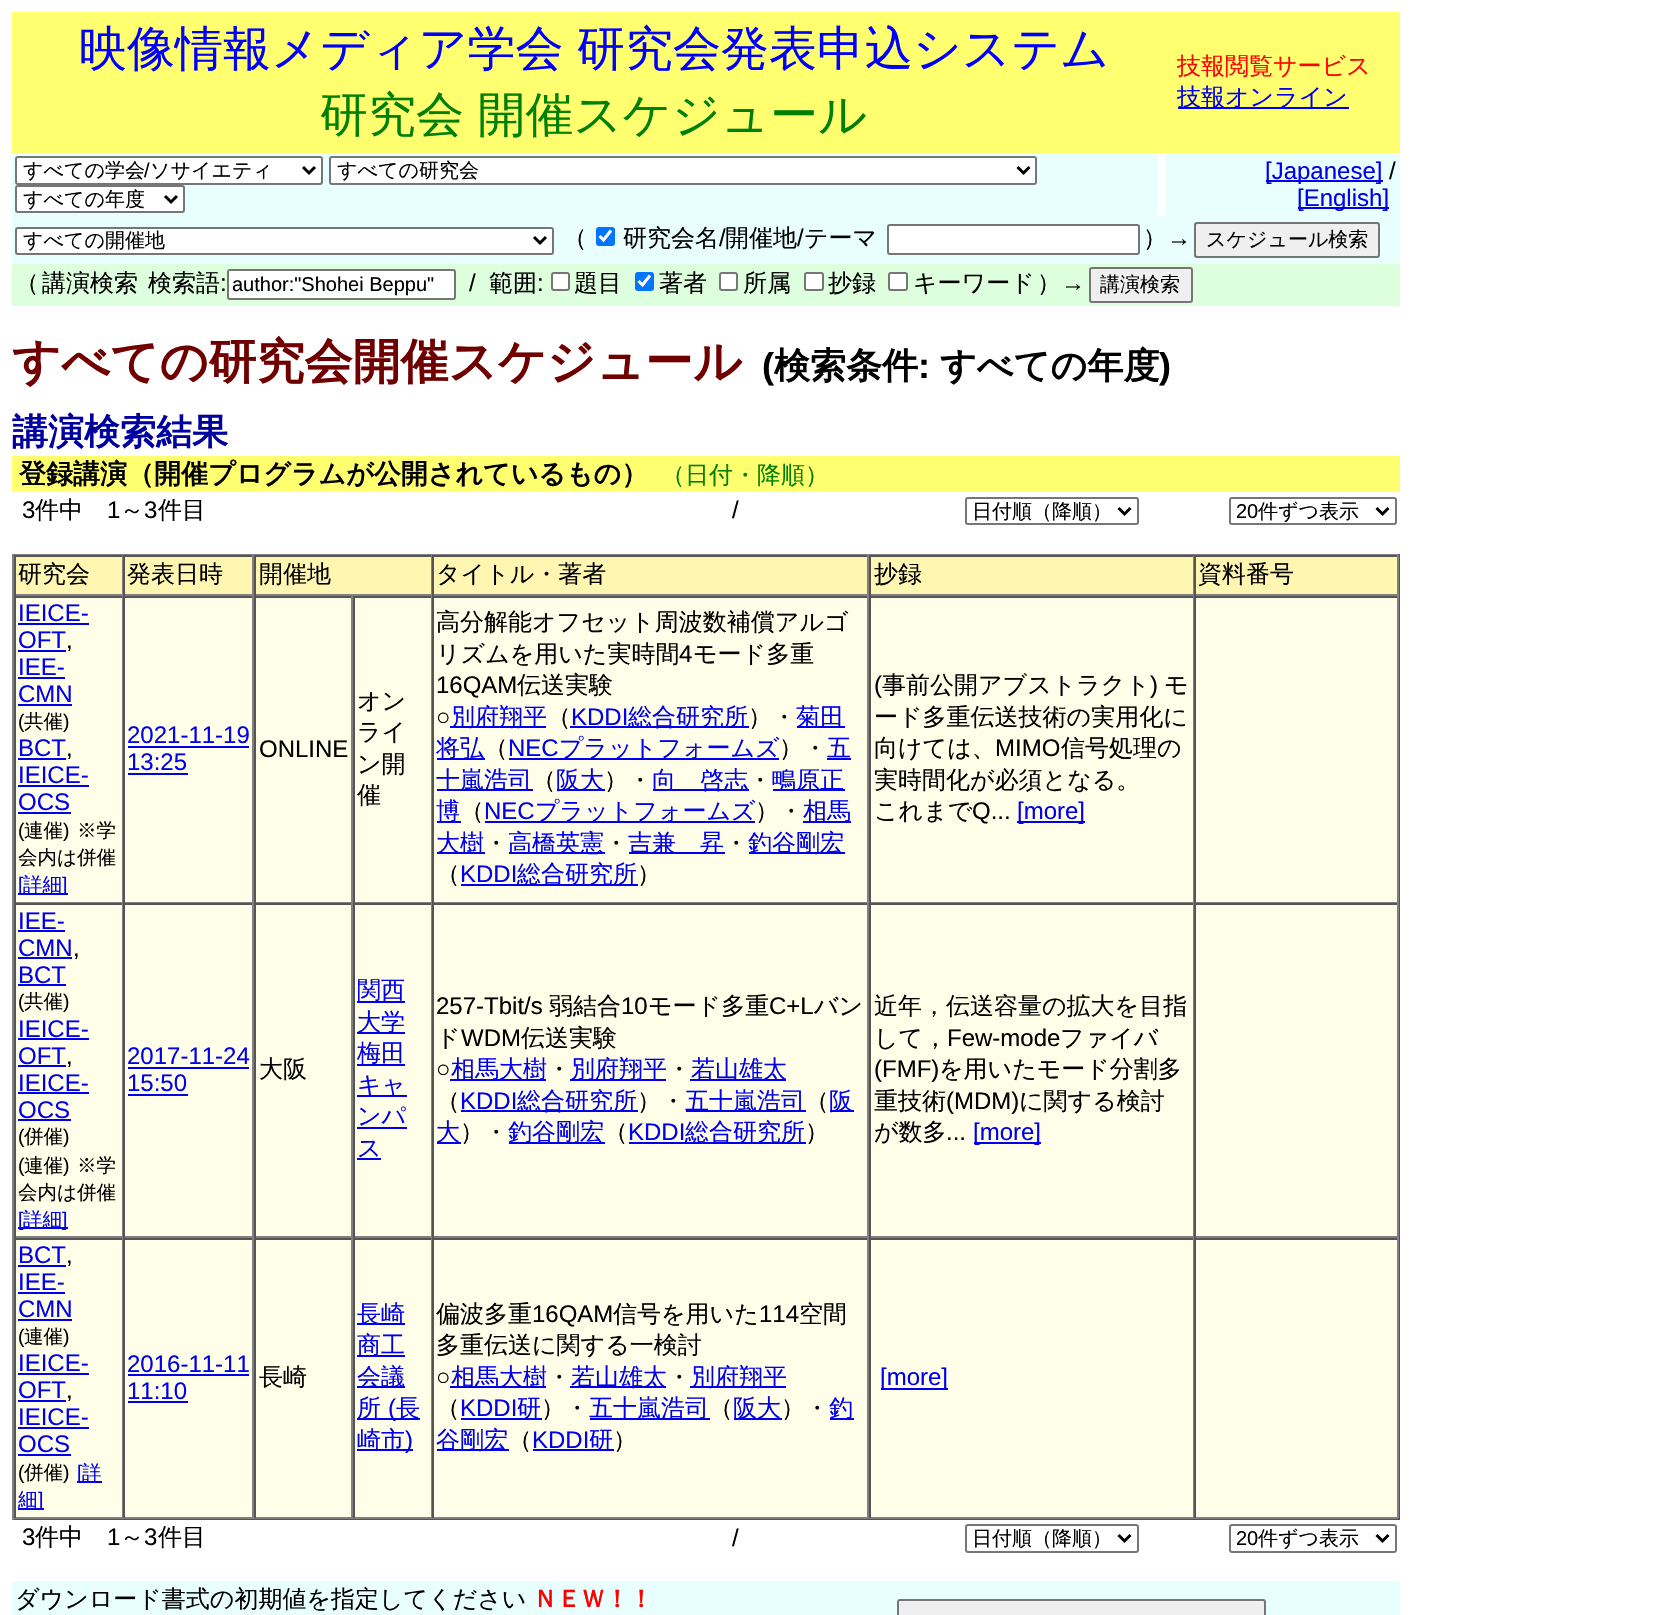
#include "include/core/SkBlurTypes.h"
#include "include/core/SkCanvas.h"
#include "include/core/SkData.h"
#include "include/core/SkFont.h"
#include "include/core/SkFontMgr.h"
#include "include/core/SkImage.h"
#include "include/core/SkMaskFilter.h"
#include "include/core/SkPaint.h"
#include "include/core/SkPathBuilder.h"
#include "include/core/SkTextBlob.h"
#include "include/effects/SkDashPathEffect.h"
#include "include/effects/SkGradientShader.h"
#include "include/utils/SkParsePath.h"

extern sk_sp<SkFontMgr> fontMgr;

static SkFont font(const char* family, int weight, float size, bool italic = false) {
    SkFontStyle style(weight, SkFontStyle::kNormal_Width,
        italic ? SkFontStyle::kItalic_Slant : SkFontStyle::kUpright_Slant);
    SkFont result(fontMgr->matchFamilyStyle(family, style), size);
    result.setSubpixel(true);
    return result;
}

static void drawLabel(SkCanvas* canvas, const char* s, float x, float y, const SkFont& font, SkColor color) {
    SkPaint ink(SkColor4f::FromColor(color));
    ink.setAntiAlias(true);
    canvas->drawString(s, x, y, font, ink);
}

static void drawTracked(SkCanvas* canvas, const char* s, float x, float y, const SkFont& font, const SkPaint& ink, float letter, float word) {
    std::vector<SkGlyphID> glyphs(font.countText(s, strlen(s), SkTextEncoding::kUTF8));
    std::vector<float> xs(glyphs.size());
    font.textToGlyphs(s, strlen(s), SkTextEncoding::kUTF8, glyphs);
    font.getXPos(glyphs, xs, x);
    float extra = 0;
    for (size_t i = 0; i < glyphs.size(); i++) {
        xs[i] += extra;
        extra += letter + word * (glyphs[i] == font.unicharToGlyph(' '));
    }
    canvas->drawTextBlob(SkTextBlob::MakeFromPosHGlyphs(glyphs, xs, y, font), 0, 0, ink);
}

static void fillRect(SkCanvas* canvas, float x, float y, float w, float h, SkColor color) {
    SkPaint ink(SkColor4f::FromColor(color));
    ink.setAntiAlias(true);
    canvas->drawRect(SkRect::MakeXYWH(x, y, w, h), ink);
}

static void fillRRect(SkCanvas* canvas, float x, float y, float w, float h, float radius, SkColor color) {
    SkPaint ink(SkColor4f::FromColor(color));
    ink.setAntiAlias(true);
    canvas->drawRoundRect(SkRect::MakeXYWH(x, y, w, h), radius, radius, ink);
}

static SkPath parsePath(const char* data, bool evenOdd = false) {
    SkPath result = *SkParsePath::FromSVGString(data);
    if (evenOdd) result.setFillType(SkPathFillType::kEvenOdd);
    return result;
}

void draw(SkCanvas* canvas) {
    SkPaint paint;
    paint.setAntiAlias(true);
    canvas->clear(0xFFFFFFFF);
    fillRect(canvas, 12, 12, 1388, 141, 0xFFFFFF6F);
    SkFont font1 = font("WenQuanYi Zen Hei", 500, 48);
    paint.setColor(0xFF0000FF);
    drawTracked(canvas, "映像情報メディア学会 研究会発表申込システム", 79, 65, font1, paint, 0, -1);
    paint.setColor(0xFF008000);
    drawTracked(canvas, "研究会 開催スケジュール", 320, 131, font1, paint, 0, -1);
    SkFont font2 = font("WenQuanYi Zen Hei", 500, 24);
    drawLabel(canvas, "技報閲覧サービス", 1177, 74, font2, 0xFFFF0000);
    fillRect(canvas, 1178, 107, 171, 2, 0xFF0000EE);
    drawLabel(canvas, "技報オンライン", 1177, 105, font2, 0xFF0000EE);
    fillRect(canvas, 12, 153, 1146, 63, 0xFFE9FFFF);
    paint.setColor(0xFFFFFFFF);
    canvas->drawRoundRect(SkRect::MakeXYWH(16, 157, 306, 27), 2, 2, paint);
    paint.setStroke(true);
    paint.setStrokeWidth(2);
    paint.setColor(0xFF767676);
    canvas->drawRoundRect(SkRect::MakeXYWH(16, 157, 306, 27), 2, 2, paint);
    paint.setStrokeWidth(3);
    paint.setColor(0xFF000000);
    canvas->drawPath(parsePath("M303 167L309 173L315 167"), paint);
    SkFont font3 = font("WenQuanYi Zen Hei", 500, 20);
    drawLabel(canvas, "すべての学会", 23, 177, font3, 0xFF000000);
    SkFont font4 = font("Liberation Sans", 400, 20);
    drawLabel(canvas, "/", 144, 177, font4, 0xFF000000);
    drawLabel(canvas, "ソサイエティ", 150, 177, font3, 0xFF000000);
    paint.setStroke(false);
    paint.setColor(0xFFFFFFFF);
    canvas->drawRoundRect(SkRect::MakeXYWH(330, 157, 706, 27), 2, 2, paint);
    paint.setStroke(true);
    paint.setStrokeWidth(2);
    paint.setColor(0xFF767676);
    canvas->drawRoundRect(SkRect::MakeXYWH(330, 157, 706, 27), 2, 2, paint);
    paint.setStrokeWidth(3);
    paint.setColor(0xFF000000);
    canvas->drawPath(parsePath("M1017.5 167L1023.5 173L1029.5 167"), paint);
    drawLabel(canvas, "すべての研究会", 337, 177, font3, 0xFF000000);
    paint.setStroke(false);
    paint.setColor(0xFFFFFFFF);
    canvas->drawRoundRect(SkRect::MakeXYWH(16, 186, 168, 26), 2, 2, paint);
    paint.setStroke(true);
    paint.setStrokeWidth(2);
    paint.setColor(0xFF767676);
    canvas->drawRoundRect(SkRect::MakeXYWH(16, 186, 168, 26), 2, 2, paint);
    paint.setStrokeWidth(3);
    paint.setColor(0xFF000000);
    canvas->drawPath(parsePath("M165 196L171 202L177 196"), paint);
    drawLabel(canvas, "すべての年度", 23, 206, font3, 0xFF000000);
    fillRect(canvas, 1166, 153, 234, 63, 0xFFE9FFFF);
    fillRect(canvas, 1266, 180, 117, 2, 0xFF0000EE);
    SkFont font5 = font("Liberation Sans", 400, 24);
    drawLabel(canvas, "[Japanese]", 1265, 179, font5, 0xFF0000EE);
    drawLabel(canvas, "/", 1389, 179, font5, 0xFF000000);
    fillRect(canvas, 1298, 207, 91, 2, 0xFF0000EE);
    drawLabel(canvas, "[English]", 1297, 206, font5, 0xFF0000EE);
    fillRect(canvas, 12, 216, 1388, 48, 0xFFE9FFFF);
    paint.setStroke(false);
    paint.setColor(0xFFFFFFFF);
    canvas->drawRoundRect(SkRect::MakeXYWH(16, 228, 537, 26), 2, 2, paint);
    paint.setStroke(true);
    paint.setStrokeWidth(2);
    paint.setColor(0xFF767676);
    canvas->drawRoundRect(SkRect::MakeXYWH(16, 228, 537, 26), 2, 2, paint);
    paint.setStrokeWidth(3);
    paint.setColor(0xFF000000);
    canvas->drawPath(parsePath("M534 237L540 243L546 237"), paint);
    drawLabel(canvas, "すべての開催地", 23, 247, font3, 0xFF000000);
    drawLabel(canvas, "（", 563, 246, font2, 0xFF000000);
    fillRRect(canvas, 596, 227, 19, 19, 3, 0xFF0075FF);
    paint.setStrokeWidth(3.1f);
    paint.setColor(0xFFFFFFFF);
    canvas->drawPath(parsePath("M599.5 236L603.5 240L611 230.5"), paint);
    drawLabel(canvas, "研究会名", 623, 246, font2, 0xFF000000);
    drawLabel(canvas, "/", 719, 246, font5, 0xFF000000);
    drawLabel(canvas, "開催地", 725, 246, font2, 0xFF000000);
    drawLabel(canvas, "/", 797, 246, font5, 0xFF000000);
    drawLabel(canvas, "テーマ", 804, 246, font2, 0xFF000000);
    paint.setStroke(false);
    canvas->drawRoundRect(SkRect::MakeXYWH(888, 225, 251, 29), 2, 2, paint);
    paint.setStroke(true);
    paint.setStrokeWidth(2);
    paint.setColor(0xFF767676);
    canvas->drawRoundRect(SkRect::MakeXYWH(888, 225, 251, 29), 2, 2, paint);
    drawLabel(canvas, "）", 1143, 246, font2, 0xFF000000);
    drawLabel(canvas, "→", 1167, 246, font5, 0xFF000000);
    paint.setStroke(false);
    paint.setColor(0xFFEFEFEF);
    canvas->drawRoundRect(SkRect::MakeXYWH(1195, 223, 184, 34), 2, 2, paint);
    paint.setStroke(true);
    paint.setColor(0xFF767676);
    canvas->drawRoundRect(SkRect::MakeXYWH(1195, 223, 184, 34), 2, 2, paint);
    drawLabel(canvas, "スケジュール検索", 1206, 246, font3, 0xFF000000);
    fillRect(canvas, 12, 264, 1388, 42, 0xFFDEFFDE);
    drawLabel(canvas, "（", 15, 291, font2, 0xFF000000);
    drawLabel(canvas, "講演検索", 42, 291, font2, 0xFF000000);
    drawLabel(canvas, "検索語", 148, 291, font2, 0xFF000000);
    drawLabel(canvas, ":", 220, 291, font5, 0xFF000000);
    paint.setStroke(false);
    paint.setColor(0xFFFFFFFF);
    canvas->drawRoundRect(SkRect::MakeXYWH(228, 270, 227, 29), 2, 2, paint);
    paint.setStroke(true);
    paint.setColor(0xFF767676);
    canvas->drawRoundRect(SkRect::MakeXYWH(228, 270, 227, 29), 2, 2, paint);
    drawLabel(canvas, "author:\"Shohei Beppu\"", 232, 291, font4, 0xFF000000);
    drawLabel(canvas, "/", 469, 291, font5, 0xFF000000);
    drawLabel(canvas, "範囲", 489, 291, font2, 0xFF000000);
    drawLabel(canvas, ":", 537, 291, font5, 0xFF000000);
    paint.setStroke(false);
    paint.setColor(0xFFFFFFFF);
    canvas->drawRoundRect(SkRect::MakeXYWH(552, 273, 17, 17), 2, 2, paint);
    paint.setStroke(true);
    paint.setColor(0xFF767676);
    canvas->drawRoundRect(SkRect::MakeXYWH(552, 273, 17, 17), 2, 2, paint);
    drawLabel(canvas, "題目", 574, 291, font2, 0xFF000000);
    fillRRect(canvas, 635, 272, 19, 19, 3, 0xFF0075FF);
    paint.setStrokeWidth(3.1f);
    paint.setColor(0xFFFFFFFF);
    canvas->drawPath(parsePath("M638.5 281L642.5 285L650 275.5"), paint);
    drawLabel(canvas, "著者", 659, 291, font2, 0xFF000000);
    paint.setStroke(false);
    canvas->drawRoundRect(SkRect::MakeXYWH(720, 273, 17, 17), 2, 2, paint);
    paint.setStroke(true);
    paint.setStrokeWidth(2);
    paint.setColor(0xFF767676);
    canvas->drawRoundRect(SkRect::MakeXYWH(720, 273, 17, 17), 2, 2, paint);
    drawLabel(canvas, "所属", 743, 291, font2, 0xFF000000);
    paint.setStroke(false);
    paint.setColor(0xFFFFFFFF);
    canvas->drawRoundRect(SkRect::MakeXYWH(805, 273, 18, 17), 2, 2, paint);
    paint.setStroke(true);
    paint.setColor(0xFF767676);
    canvas->drawRoundRect(SkRect::MakeXYWH(805, 273, 18, 17), 2, 2, paint);
    drawLabel(canvas, "抄録", 828, 291, font2, 0xFF000000);
    paint.setStroke(false);
    paint.setColor(0xFFFFFFFF);
    canvas->drawRoundRect(SkRect::MakeXYWH(889, 273, 18, 17), 2, 2, paint);
    paint.setStroke(true);
    paint.setColor(0xFF767676);
    canvas->drawRoundRect(SkRect::MakeXYWH(889, 273, 18, 17), 2, 2, paint);
    drawLabel(canvas, "キーワード", 913, 291, font2, 0xFF000000);
    drawLabel(canvas, "）", 1037, 291, font2, 0xFF000000);
    drawLabel(canvas, "→", 1061, 291, font5, 0xFF000000);
    paint.setStroke(false);
    paint.setColor(0xFFEFEFEF);
    canvas->drawRoundRect(SkRect::MakeXYWH(1090, 268, 102, 34), 2, 2, paint);
    paint.setStroke(true);
    paint.setColor(0xFF767676);
    canvas->drawRoundRect(SkRect::MakeXYWH(1090, 268, 102, 34), 2, 2, paint);
    drawLabel(canvas, "講演検索", 1100, 291, font3, 0xFF000000);
    SkFont font6 = font("WenQuanYi Zen Hei", 700, 48);
    drawLabel(canvas, "すべての研究会開催スケジュール", 12, 378, font6, 0xFF700000);
    SkFont font7 = font("Liberation Sans", 700, 36);
    drawLabel(canvas, "(", 762, 378, font7, 0xFF000000);
    SkFont font8 = font("WenQuanYi Zen Hei", 700, 36);
    drawLabel(canvas, "検索条件", 774, 378, font8, 0xFF000000);
    drawLabel(canvas, ":", 918, 378, font7, 0xFF000000);
    drawLabel(canvas, "すべての年度", 940, 378, font8, 0xFF000000);
    drawLabel(canvas, ")", 1159, 378, font7, 0xFF000000);
    drawLabel(canvas, "講演検索結果", 12, 444, font8, 0xFF0000A0);
    fillRect(canvas, 12, 456, 1388, 36, 0xFFFFFF6F);
    SkFont font9 = font("WenQuanYi Zen Hei", 700, 27);
    drawLabel(canvas, "登録講演（開催プログラムが公開されているもの）", 19, 483, font9, 0xFF000000);
    drawLabel(canvas, "（日付・降順）", 661, 483, font2, 0xFF008000);
    drawLabel(canvas, "3", 22, 518, font5, 0xFF000000);
    drawLabel(canvas, "件中", 35, 518, font2, 0xFF000000);
    drawLabel(canvas, "1", 107, 518, font5, 0xFF000000);
    drawLabel(canvas, "～", 120, 518, font2, 0xFF000000);
    drawLabel(canvas, "3", 144, 518, font5, 0xFF000000);
    drawLabel(canvas, "件目", 158, 518, font2, 0xFF000000);
    drawLabel(canvas, "/", 732, 518, font5, 0xFF000000);
    canvas->drawRoundRect(SkRect::MakeXYWH(966, 498, 172, 26), 2, 2, paint);
    paint.setStrokeWidth(3);
    paint.setColor(0xFF000000);
    canvas->drawPath(parsePath("M1118.5 508L1124.5 514L1130.5 508"), paint);
    drawLabel(canvas, "日付順（降順）", 972, 518, font3, 0xFF000000);
    paint.setStrokeWidth(2);
    paint.setColor(0xFF767676);
    canvas->drawRoundRect(SkRect::MakeXYWH(1230, 498, 166, 26), 2, 2, paint);
    paint.setStrokeWidth(3);
    paint.setColor(0xFF000000);
    canvas->drawPath(parsePath("M1376.5 508L1382.5 514L1388.5 508"), paint);
    drawLabel(canvas, "20", 1236, 518, font4, 0xFF000000);
    drawLabel(canvas, "件ずつ表示", 1258, 518, font3, 0xFF000000);
    fillRect(canvas, 12, 554, 1388, 1, 0xFF808080);
    fillRect(canvas, 1398, 554, 2, 966, 0xFF555555);
    fillRect(canvas, 12, 1518, 1388, 2, 0xFF555555);
    fillRect(canvas, 12, 554, 2, 966, 0xFF808080);
    fillRect(canvas, 16, 557, 106, 37, 0xFFFFF6B1);
    fillRect(canvas, 14, 555, 1384, 2, 0xFF555555);
    fillRect(canvas, 122, 555, 1, 41, 0xFF808080);
    fillRect(canvas, 14, 594, 109, 2, 0xFF808080);
    fillRect(canvas, 14, 555, 2, 41, 0xFF555555);
    drawLabel(canvas, "研究会", 18, 582, font2, 0xFF000000);
    fillRect(canvas, 125, 557, 127, 37, 0xFFFFF6B1);
    fillRect(canvas, 252, 555, 2, 41, 0xFF808080);
    fillRect(canvas, 123, 594, 131, 2, 0xFF808080);
    fillRect(canvas, 123, 555, 2, 41, 0xFF555555);
    drawLabel(canvas, "発表日時", 127, 582, font2, 0xFF000000);
    fillRect(canvas, 256, 557, 175, 37, 0xFFFFF6B1);
    fillRect(canvas, 431, 555, 1, 41, 0xFF808080);
    fillRect(canvas, 254, 594, 178, 2, 0xFF808080);
    fillRect(canvas, 254, 555, 2, 41, 0xFF555555);
    drawLabel(canvas, "開催地", 259, 582, font2, 0xFF000000);
    fillRect(canvas, 434, 557, 433, 37, 0xFFFFF6B1);
    fillRect(canvas, 867, 555, 2, 41, 0xFF808080);
    fillRect(canvas, 432, 594, 437, 2, 0xFF808080);
    fillRect(canvas, 432, 555, 2, 41, 0xFF555555);
    drawLabel(canvas, "タイトル・著者", 436, 582, font2, 0xFF000000);
    fillRect(canvas, 871, 557, 322, 37, 0xFFFFF6B1);
    fillRect(canvas, 1193, 555, 1, 41, 0xFF808080);
    fillRect(canvas, 869, 594, 325, 2, 0xFF808080);
    fillRect(canvas, 869, 555, 2, 41, 0xFF555555);
    drawLabel(canvas, "抄録", 874, 582, font2, 0xFF000000);
    fillRect(canvas, 1196, 557, 201, 37, 0xFFFFF6B1);
    fillRect(canvas, 1397, 555, 2, 41, 0xFF808080);
    fillRect(canvas, 1194, 594, 204, 2, 0xFF808080);
    fillRect(canvas, 1194, 555, 2, 41, 0xFF555555);
    drawLabel(canvas, "資料番号", 1198, 582, font2, 0xFF000000);
    fillRect(canvas, 16, 598, 106, 304, 0xFFFFFFE9);
    fillRect(canvas, 14, 596, 1384, 2, 0xFF555555);
    fillRect(canvas, 122, 596, 1, 307, 0xFF808080);
    fillRect(canvas, 14, 902, 109, 1, 0xFF808080);
    fillRect(canvas, 14, 596, 2, 307, 0xFF555555);
    drawLabel(canvas, "IEICE-", 18, 621, font5, 0xFF0000EE);
    fillRect(canvas, 18, 623, 71, 2, 0xFF0000EE);
    drawLabel(canvas, "OFT", 18, 648, font5, 0xFF0000EE);
    fillRect(canvas, 18, 650, 48, 2, 0xFF0000EE);
    drawLabel(canvas, ",", 66, 648, font5, 0xFF000000);
    drawLabel(canvas, "IEE-", 18, 675, font5, 0xFF0000EE);
    fillRect(canvas, 18, 677, 47, 2, 0xFF0000EE);
    drawLabel(canvas, "CMN", 18, 702, font5, 0xFF0000EE);
    fillRect(canvas, 18, 704, 54, 2, 0xFF0000EE);
    SkFont font10 = font("Liberation Sans", 400, 19.5f);
    drawLabel(canvas, "(", 18, 728, font10, 0xFF000000);
    SkFont font11 = font("WenQuanYi Zen Hei", 500, 19.5f);
    drawLabel(canvas, "共催", 24, 728, font11, 0xFF000000);
    drawLabel(canvas, ")", 63, 728, font10, 0xFF000000);
    drawLabel(canvas, "BCT", 18, 756, font5, 0xFF0000EE);
    fillRect(canvas, 18, 758, 48, 2, 0xFF0000EE);
    drawLabel(canvas, ",", 66, 756, font5, 0xFF000000);
    drawLabel(canvas, "IEICE-", 18, 783, font5, 0xFF0000EE);
    fillRect(canvas, 18, 785, 71, 2, 0xFF0000EE);
    drawLabel(canvas, "OCS", 18, 810, font5, 0xFF0000EE);
    fillRect(canvas, 18, 812, 53, 2, 0xFF0000EE);
    drawLabel(canvas, "(", 18, 837, font10, 0xFF000000);
    drawLabel(canvas, "連催", 24, 837, font11, 0xFF000000);
    drawLabel(canvas, ")", 63, 837, font10, 0xFF000000);
    drawLabel(canvas, "※学", 77, 837, font11, 0xFF000000);
    drawLabel(canvas, "会内は併催", 18, 864, font11, 0xFF000000);
    fillRect(canvas, 18, 893, 50, 2, 0xFF0000EE);
    drawLabel(canvas, "[", 18, 891, font10, 0xFF0000EE);
    drawLabel(canvas, "詳細", 23, 891, font11, 0xFF0000EE);
    drawLabel(canvas, "]", 62, 891, font10, 0xFF0000EE);
    fillRect(canvas, 125, 598, 127, 304, 0xFFFFFFE9);
    fillRect(canvas, 252, 596, 2, 307, 0xFF808080);
    fillRect(canvas, 123, 902, 131, 1, 0xFF808080);
    fillRect(canvas, 123, 596, 2, 307, 0xFF555555);
    drawLabel(canvas, "2021-11-19", 127, 743, font5, 0xFF0000EE);
    fillRect(canvas, 128, 746, 121, 2, 0xFF0000EE);
    drawLabel(canvas, "13:25", 127, 770, font5, 0xFF0000EE);
    fillRect(canvas, 128, 773, 60, 2, 0xFF0000EE);
    fillRect(canvas, 256, 598, 95, 304, 0xFFFFFFE9);
    fillRect(canvas, 351, 596, 2, 307, 0xFF808080);
    fillRect(canvas, 254, 902, 99, 1, 0xFF808080);
    fillRect(canvas, 254, 596, 2, 307, 0xFF555555);
    drawLabel(canvas, "ONLINE", 259, 757, font5, 0xFF000000);
    fillRect(canvas, 355, 598, 76, 304, 0xFFFFFFE9);
    fillRect(canvas, 431, 596, 1, 307, 0xFF808080);
    fillRect(canvas, 353, 902, 79, 1, 0xFF808080);
    fillRect(canvas, 353, 596, 2, 307, 0xFF555555);
    drawLabel(canvas, "オン", 357, 709, font2, 0xFF000000);
    drawLabel(canvas, "ライ", 357, 740, font2, 0xFF000000);
    drawLabel(canvas, "ン開", 357, 772, font2, 0xFF000000);
    drawLabel(canvas, "催", 357, 803, font2, 0xFF000000);
    fillRect(canvas, 434, 598, 433, 304, 0xFFFFFFE9);
    fillRect(canvas, 867, 596, 2, 307, 0xFF808080);
    fillRect(canvas, 432, 902, 437, 1, 0xFF808080);
    fillRect(canvas, 432, 596, 2, 307, 0xFF555555);
    drawLabel(canvas, "高分解能オフセット周波数補償アルゴ", 436, 630, font2, 0xFF000000);
    drawLabel(canvas, "リズムを用いた実時間", 436, 662, font2, 0xFF000000);
    drawLabel(canvas, "4", 679, 662, font5, 0xFF000000);
    drawLabel(canvas, "モード多重", 693, 662, font2, 0xFF000000);
    drawLabel(canvas, "16QAM", 436, 693, font5, 0xFF000000);
    drawLabel(canvas, "伝送実験", 517, 693, font2, 0xFF000000);
    drawLabel(canvas, "○", 436, 725, font5, 0xFF000000);
    fillRect(canvas, 450, 726, 96, 2, 0xFF0000EE);
    drawLabel(canvas, "別府翔平", 451, 725, font2, 0xFF0000EE);
    drawLabel(canvas, "（", 547, 725, font2, 0xFF000000);
    drawLabel(canvas, "KDDI", 571, 725, font5, 0xFF0000EE);
    fillRect(canvas, 570, 726, 179, 2, 0xFF0000EE);
    drawLabel(canvas, "総合研究所", 628, 725, font2, 0xFF0000EE);
    drawLabel(canvas, "）・", 748, 725, font2, 0xFF000000);
    fillRect(canvas, 797, 726, 48, 2, 0xFF0000EE);
    drawLabel(canvas, "菊田", 796, 725, font2, 0xFF0000EE);
    fillRect(canvas, 437, 758, 48, 2, 0xFF0000EE);
    drawLabel(canvas, "将弘", 436, 756, font2, 0xFF0000EE);
    drawLabel(canvas, "（", 484, 756, font2, 0xFF000000);
    drawLabel(canvas, "NEC", 508, 756, font5, 0xFF0000EE);
    fillRect(canvas, 509, 758, 270, 2, 0xFF0000EE);
    drawLabel(canvas, "プラットフォームズ", 559, 756, font2, 0xFF0000EE);
    drawLabel(canvas, "）・", 779, 756, font2, 0xFF000000);
    drawLabel(canvas, "五", 827, 756, font2, 0xFF0000EE);
    fillRect(canvas, 827, 758, 24, 2, 0xFF0000EE);
    fillRect(canvas, 437, 789, 96, 2, 0xFF0000EE);
    drawLabel(canvas, "十嵐浩司", 436, 788, font2, 0xFF0000EE);
    drawLabel(canvas, "（", 532, 788, font2, 0xFF000000);
    fillRect(canvas, 557, 789, 48, 2, 0xFF0000EE);
    drawLabel(canvas, "阪大", 556, 788, font2, 0xFF0000EE);
    drawLabel(canvas, "）・", 604, 788, font2, 0xFF000000);
    fillRect(canvas, 653, 789, 96, 2, 0xFF0000EE);
    drawLabel(canvas, "向　啓志", 652, 788, font2, 0xFF0000EE);
    drawLabel(canvas, "・", 748, 788, font2, 0xFF000000);
    fillRect(canvas, 773, 789, 72, 2, 0xFF0000EE);
    drawLabel(canvas, "鴫原正", 772, 788, font2, 0xFF0000EE);
    fillRect(canvas, 437, 821, 24, 2, 0xFF0000EE);
    drawLabel(canvas, "博", 436, 819, font2, 0xFF0000EE);
    drawLabel(canvas, "（", 460, 819, font2, 0xFF000000);
    drawLabel(canvas, "NEC", 484, 819, font5, 0xFF0000EE);
    fillRect(canvas, 485, 821, 270, 2, 0xFF0000EE);
    drawLabel(canvas, "プラットフォームズ", 535, 819, font2, 0xFF0000EE);
    drawLabel(canvas, "）・", 755, 819, font2, 0xFF000000);
    fillRect(canvas, 803, 821, 48, 2, 0xFF0000EE);
    drawLabel(canvas, "相馬", 803, 819, font2, 0xFF0000EE);
    fillRect(canvas, 437, 852, 48, 2, 0xFF0000EE);
    drawLabel(canvas, "大樹", 436, 851, font2, 0xFF0000EE);
    drawLabel(canvas, "・", 484, 851, font2, 0xFF000000);
    fillRect(canvas, 509, 852, 96, 2, 0xFF0000EE);
    drawLabel(canvas, "高橋英憲", 508, 851, font2, 0xFF0000EE);
    drawLabel(canvas, "・", 604, 851, font2, 0xFF000000);
    fillRect(canvas, 629, 852, 96, 2, 0xFF0000EE);
    drawLabel(canvas, "吉兼　昇", 628, 851, font2, 0xFF0000EE);
    drawLabel(canvas, "・", 724, 851, font2, 0xFF000000);
    fillRect(canvas, 749, 852, 96, 2, 0xFF0000EE);
    drawLabel(canvas, "釣谷剛宏", 748, 851, font2, 0xFF0000EE);
    drawLabel(canvas, "（", 436, 882, font2, 0xFF000000);
    drawLabel(canvas, "KDDI", 460, 882, font5, 0xFF0000EE);
    fillRect(canvas, 461, 884, 177, 2, 0xFF0000EE);
    drawLabel(canvas, "総合研究所", 517, 882, font2, 0xFF0000EE);
    drawLabel(canvas, "）", 637, 882, font2, 0xFF000000);
    fillRect(canvas, 871, 598, 322, 304, 0xFFFFFFE9);
    fillRect(canvas, 1193, 596, 1, 307, 0xFF808080);
    fillRect(canvas, 869, 902, 325, 1, 0xFF808080);
    fillRect(canvas, 869, 596, 2, 307, 0xFF555555);
    drawLabel(canvas, "(", 874, 693, font5, 0xFF000000);
    drawLabel(canvas, "事前公開アブストラクト", 882, 693, font2, 0xFF000000);
    drawLabel(canvas, ")", 1150, 693, font5, 0xFF000000);
    drawLabel(canvas, "モ", 1164, 693, font2, 0xFF000000);
    drawLabel(canvas, "ード多重伝送技術の実用化に", 874, 725, font2, 0xFF000000);
    drawLabel(canvas, "向けては、", 874, 756, font2, 0xFF000000);
    drawLabel(canvas, "MIMO", 995, 756, font5, 0xFF000000);
    drawLabel(canvas, "信号処理の", 1061, 756, font2, 0xFF000000);
    drawLabel(canvas, "実時間化が必須となる。", 874, 788, font2, 0xFF000000);
    drawLabel(canvas, "これまで", 874, 819, font2, 0xFF000000);
    drawLabel(canvas, "Q...", 972, 819, font5, 0xFF000000);
    fillRect(canvas, 1017, 821, 68, 2, 0xFF0000EE);
    drawLabel(canvas, "[more]", 1017, 819, font5, 0xFF0000EE);
    fillRect(canvas, 1196, 598, 201, 304, 0xFFFFFFE9);
    fillRect(canvas, 1397, 596, 2, 307, 0xFF808080);
    fillRect(canvas, 1194, 902, 204, 1, 0xFF808080);
    fillRect(canvas, 1194, 596, 2, 307, 0xFF555555);
    fillRect(canvas, 16, 905, 106, 331, 0xFFFFFFE9);
    fillRect(canvas, 14, 903, 1384, 2, 0xFF555555);
    fillRect(canvas, 122, 903, 1, 335, 0xFF808080);
    fillRect(canvas, 14, 1236, 109, 2, 0xFF808080);
    fillRect(canvas, 14, 903, 2, 335, 0xFF555555);
    drawLabel(canvas, "IEE-", 18, 929, font5, 0xFF0000EE);
    fillRect(canvas, 18, 930, 47, 2, 0xFF0000EE);
    drawLabel(canvas, "CMN", 18, 956, font5, 0xFF0000EE);
    fillRect(canvas, 18, 957, 54, 2, 0xFF0000EE);
    drawLabel(canvas, ",", 73, 956, font5, 0xFF000000);
    drawLabel(canvas, "BCT", 18, 983, font5, 0xFF0000EE);
    fillRect(canvas, 18, 984, 48, 2, 0xFF0000EE);
    drawLabel(canvas, "(", 18, 1008, font10, 0xFF000000);
    drawLabel(canvas, "共催", 24, 1008, font11, 0xFF000000);
    drawLabel(canvas, ")", 63, 1008, font10, 0xFF000000);
    drawLabel(canvas, "IEICE-", 18, 1037, font5, 0xFF0000EE);
    fillRect(canvas, 18, 1038, 71, 2, 0xFF0000EE);
    drawLabel(canvas, "OFT", 18, 1064, font5, 0xFF0000EE);
    fillRect(canvas, 18, 1065, 48, 2, 0xFF0000EE);
    drawLabel(canvas, ",", 66, 1064, font5, 0xFF000000);
    drawLabel(canvas, "IEICE-", 18, 1091, font5, 0xFF0000EE);
    fillRect(canvas, 18, 1092, 71, 2, 0xFF0000EE);
    drawLabel(canvas, "OCS", 18, 1118, font5, 0xFF0000EE);
    fillRect(canvas, 18, 1119, 53, 2, 0xFF0000EE);
    drawLabel(canvas, "(", 18, 1143, font10, 0xFF000000);
    drawLabel(canvas, "併催", 24, 1143, font11, 0xFF000000);
    drawLabel(canvas, ")", 63, 1143, font10, 0xFF000000);
    drawLabel(canvas, "(", 18, 1172, font10, 0xFF000000);
    drawLabel(canvas, "連催", 24, 1172, font11, 0xFF000000);
    drawLabel(canvas, ")", 63, 1172, font10, 0xFF000000);
    drawLabel(canvas, "※学", 77, 1172, font11, 0xFF000000);
    drawLabel(canvas, "会内は併催", 18, 1199, font11, 0xFF000000);
    fillRect(canvas, 18, 1227, 50, 2, 0xFF0000EE);
    drawLabel(canvas, "[", 18, 1226, font10, 0xFF0000EE);
    drawLabel(canvas, "詳細", 23, 1226, font11, 0xFF0000EE);
    drawLabel(canvas, "]", 62, 1226, font10, 0xFF0000EE);
    fillRect(canvas, 125, 905, 127, 331, 0xFFFFFFE9);
    fillRect(canvas, 252, 903, 2, 335, 0xFF808080);
    fillRect(canvas, 123, 1236, 131, 2, 0xFF808080);
    fillRect(canvas, 123, 903, 2, 335, 0xFF555555);
    drawLabel(canvas, "2017-11-24", 127, 1064, font5, 0xFF0000EE);
    fillRect(canvas, 128, 1067, 121, 2, 0xFF0000EE);
    drawLabel(canvas, "15:50", 127, 1091, font5, 0xFF0000EE);
    fillRect(canvas, 128, 1094, 60, 2, 0xFF0000EE);
    fillRect(canvas, 256, 905, 95, 331, 0xFFFFFFE9);
    fillRect(canvas, 351, 903, 2, 335, 0xFF808080);
    fillRect(canvas, 254, 1236, 99, 2, 0xFF808080);
    fillRect(canvas, 254, 903, 2, 335, 0xFF555555);
    drawLabel(canvas, "大阪", 259, 1077, font2, 0xFF000000);
    fillRect(canvas, 355, 905, 76, 331, 0xFFFFFFE9);
    fillRect(canvas, 431, 903, 1, 335, 0xFF808080);
    fillRect(canvas, 353, 1236, 79, 2, 0xFF808080);
    fillRect(canvas, 353, 903, 2, 335, 0xFF555555);
    fillRect(canvas, 357, 1001, 48, 2, 0xFF0000EE);
    drawLabel(canvas, "関西", 357, 998, font2, 0xFF0000EE);
    fillRect(canvas, 357, 1032, 48, 2, 0xFF0000EE);
    drawLabel(canvas, "大学", 357, 1030, font2, 0xFF0000EE);
    fillRect(canvas, 357, 1064, 48, 2, 0xFF0000EE);
    drawLabel(canvas, "梅田", 357, 1061, font2, 0xFF0000EE);
    fillRect(canvas, 357, 1095, 50, 2, 0xFF0000EE);
    drawLabel(canvas, "キャ", 357, 1093, font2, 0xFF0000EE);
    drawLabel(canvas, "ンパ", 357, 1124, font2, 0xFF0000EE);
    fillRect(canvas, 357, 1127, 50, 2, 0xFF0000EE);
    drawLabel(canvas, "ス", 357, 1156, font2, 0xFF0000EE);
    fillRect(canvas, 357, 1158, 24, 2, 0xFF0000EE);
    fillRect(canvas, 434, 905, 433, 331, 0xFFFFFFE9);
    fillRect(canvas, 867, 903, 2, 335, 0xFF808080);
    fillRect(canvas, 432, 1236, 437, 2, 0xFF808080);
    fillRect(canvas, 432, 903, 2, 335, 0xFF555555);
    drawLabel(canvas, "257-Tbit/s", 436, 1014, font5, 0xFF000000);
    drawLabel(canvas, "弱結合", 549, 1014, font2, 0xFF000000);
    drawLabel(canvas, "10", 621, 1014, font5, 0xFF000000);
    drawLabel(canvas, "モード多重", 648, 1014, font2, 0xFF000000);
    drawLabel(canvas, "C+L", 769, 1014, font5, 0xFF000000);
    drawLabel(canvas, "バン", 814, 1014, font2, 0xFF000000);
    drawLabel(canvas, "ド", 436, 1046, font2, 0xFF000000);
    drawLabel(canvas, "WDM", 461, 1046, font5, 0xFF000000);
    drawLabel(canvas, "伝送実験", 521, 1046, font2, 0xFF000000);
    drawLabel(canvas, "○", 436, 1077, font5, 0xFF000000);
    fillRect(canvas, 450, 1079, 96, 2, 0xFF0000EE);
    drawLabel(canvas, "相馬大樹", 451, 1077, font2, 0xFF0000EE);
    drawLabel(canvas, "・", 547, 1077, font2, 0xFF000000);
    fillRect(canvas, 570, 1079, 96, 2, 0xFF0000EE);
    drawLabel(canvas, "別府翔平", 571, 1077, font2, 0xFF0000EE);
    drawLabel(canvas, "・", 667, 1077, font2, 0xFF000000);
    fillRect(canvas, 690, 1079, 96, 2, 0xFF0000EE);
    drawLabel(canvas, "若山雄太", 691, 1077, font2, 0xFF0000EE);
    drawLabel(canvas, "（", 436, 1109, font2, 0xFF000000);
    drawLabel(canvas, "KDDI", 460, 1109, font5, 0xFF0000EE);
    fillRect(canvas, 461, 1110, 177, 2, 0xFF0000EE);
    drawLabel(canvas, "総合研究所", 517, 1109, font2, 0xFF0000EE);
    drawLabel(canvas, "）・", 637, 1109, font2, 0xFF000000);
    fillRect(canvas, 686, 1110, 120, 2, 0xFF0000EE);
    drawLabel(canvas, "五十嵐浩司", 685, 1109, font2, 0xFF0000EE);
    drawLabel(canvas, "（", 805, 1109, font2, 0xFF000000);
    fillRect(canvas, 830, 1110, 24, 2, 0xFF0000EE);
    drawLabel(canvas, "阪", 829, 1109, font2, 0xFF0000EE);
    fillRect(canvas, 437, 1142, 24, 2, 0xFF0000EE);
    drawLabel(canvas, "大", 436, 1140, font2, 0xFF0000EE);
    drawLabel(canvas, "）・", 460, 1140, font2, 0xFF000000);
    fillRect(canvas, 509, 1142, 96, 2, 0xFF0000EE);
    drawLabel(canvas, "釣谷剛宏", 508, 1140, font2, 0xFF0000EE);
    drawLabel(canvas, "（", 604, 1140, font2, 0xFF000000);
    drawLabel(canvas, "KDDI", 628, 1140, font5, 0xFF0000EE);
    fillRect(canvas, 629, 1142, 177, 2, 0xFF0000EE);
    drawLabel(canvas, "総合研究所", 685, 1140, font2, 0xFF0000EE);
    drawLabel(canvas, "）", 805, 1140, font2, 0xFF000000);
    fillRect(canvas, 871, 905, 322, 331, 0xFFFFFFE9);
    fillRect(canvas, 1193, 903, 1, 335, 0xFF808080);
    fillRect(canvas, 869, 1236, 325, 2, 0xFF808080);
    fillRect(canvas, 869, 903, 2, 335, 0xFF555555);
    drawLabel(canvas, "近年，伝送容量の拡大を目指", 874, 1014, font2, 0xFF000000);
    drawLabel(canvas, "して，", 874, 1046, font2, 0xFF000000);
    drawLabel(canvas, "Few-mode", 947, 1046, font5, 0xFF000000);
    drawLabel(canvas, "ファイバ", 1060, 1046, font2, 0xFF000000);
    drawLabel(canvas, "(FMF)", 874, 1077, font5, 0xFF000000);
    drawLabel(canvas, "を用いたモード分割多", 939, 1077, font2, 0xFF000000);
    drawLabel(canvas, "重技術", 874, 1109, font2, 0xFF000000);
    drawLabel(canvas, "(MDM)", 946, 1109, font5, 0xFF000000);
    drawLabel(canvas, "に関する検討", 1019, 1109, font2, 0xFF000000);
    drawLabel(canvas, "が数多", 874, 1140, font2, 0xFF000000);
    drawLabel(canvas, "...", 946, 1140, font5, 0xFF000000);
    fillRect(canvas, 974, 1142, 67, 2, 0xFF0000EE);
    drawLabel(canvas, "[more]", 973, 1140, font5, 0xFF0000EE);
    fillRect(canvas, 1196, 905, 201, 331, 0xFFFFFFE9);
    fillRect(canvas, 1397, 903, 2, 335, 0xFF808080);
    fillRect(canvas, 1194, 1236, 204, 2, 0xFF808080);
    fillRect(canvas, 1194, 903, 2, 335, 0xFF555555);
    fillRect(canvas, 16, 1240, 106, 277, 0xFFFFFFE9);
    fillRect(canvas, 14, 1238, 1384, 2, 0xFF555555);
    fillRect(canvas, 122, 1238, 1, 280, 0xFF808080);
    fillRect(canvas, 14, 1517, 109, 2, 0xFF808080);
    fillRect(canvas, 14, 1238, 2, 280, 0xFF555555);
    drawLabel(canvas, "BCT", 18, 1263, font5, 0xFF0000EE);
    fillRect(canvas, 18, 1265, 48, 2, 0xFF0000EE);
    drawLabel(canvas, ",", 66, 1263, font5, 0xFF000000);
    drawLabel(canvas, "IEE-", 18, 1290, font5, 0xFF0000EE);
    fillRect(canvas, 18, 1292, 47, 2, 0xFF0000EE);
    drawLabel(canvas, "CMN", 18, 1317, font5, 0xFF0000EE);
    fillRect(canvas, 18, 1319, 54, 2, 0xFF0000EE);
    drawLabel(canvas, "(", 18, 1343, font10, 0xFF000000);
    drawLabel(canvas, "連催", 24, 1343, font11, 0xFF000000);
    drawLabel(canvas, ")", 63, 1343, font10, 0xFF000000);
    drawLabel(canvas, "IEICE-", 18, 1371, font5, 0xFF0000EE);
    fillRect(canvas, 18, 1373, 71, 2, 0xFF0000EE);
    drawLabel(canvas, "OFT", 18, 1398, font5, 0xFF0000EE);
    fillRect(canvas, 18, 1400, 48, 2, 0xFF0000EE);
    drawLabel(canvas, ",", 66, 1398, font5, 0xFF000000);
    drawLabel(canvas, "IEICE-", 18, 1425, font5, 0xFF0000EE);
    fillRect(canvas, 18, 1427, 71, 2, 0xFF0000EE);
    drawLabel(canvas, "OCS", 18, 1452, font5, 0xFF0000EE);
    fillRect(canvas, 18, 1454, 53, 2, 0xFF0000EE);
    drawLabel(canvas, "(", 18, 1479, font10, 0xFF000000);
    drawLabel(canvas, "併催", 24, 1479, font11, 0xFF000000);
    drawLabel(canvas, ")", 63, 1479, font10, 0xFF000000);
    fillRect(canvas, 77, 1481, 25, 2, 0xFF0000EE);
    drawLabel(canvas, "[", 77, 1479, font10, 0xFF0000EE);
    drawLabel(canvas, "詳", 82, 1479, font11, 0xFF0000EE);
    fillRect(canvas, 18, 1508, 26, 2, 0xFF0000EE);
    drawLabel(canvas, "細", 18, 1506, font11, 0xFF0000EE);
    drawLabel(canvas, "]", 38, 1506, font10, 0xFF0000EE);
    fillRect(canvas, 125, 1240, 127, 277, 0xFFFFFFE9);
    fillRect(canvas, 252, 1238, 2, 280, 0xFF808080);
    fillRect(canvas, 123, 1517, 131, 2, 0xFF808080);
    fillRect(canvas, 123, 1238, 2, 280, 0xFF555555);
    drawLabel(canvas, "2016-11-11", 127, 1372, font5, 0xFF0000EE);
    fillRect(canvas, 128, 1374, 121, 2, 0xFF0000EE);
    drawLabel(canvas, "11:10", 127, 1399, font5, 0xFF0000EE);
    fillRect(canvas, 128, 1401, 60, 2, 0xFF0000EE);
    fillRect(canvas, 256, 1240, 95, 277, 0xFFFFFFE9);
    fillRect(canvas, 351, 1238, 2, 280, 0xFF808080);
    fillRect(canvas, 254, 1517, 99, 2, 0xFF808080);
    fillRect(canvas, 254, 1238, 2, 280, 0xFF555555);
    drawLabel(canvas, "長崎", 259, 1385, font2, 0xFF000000);
    fillRect(canvas, 355, 1240, 76, 277, 0xFFFFFFE9);
    fillRect(canvas, 431, 1238, 1, 280, 0xFF808080);
    fillRect(canvas, 353, 1517, 79, 2, 0xFF808080);
    fillRect(canvas, 353, 1238, 2, 280, 0xFF555555);
    fillRect(canvas, 357, 1323, 48, 2, 0xFF0000EE);
    drawLabel(canvas, "長崎", 357, 1322, font2, 0xFF0000EE);
    fillRect(canvas, 357, 1355, 48, 2, 0xFF0000EE);
    drawLabel(canvas, "商工", 357, 1353, font2, 0xFF0000EE);
    fillRect(canvas, 357, 1386, 48, 2, 0xFF0000EE);
    drawLabel(canvas, "会議", 357, 1385, font2, 0xFF0000EE);
    fillRect(canvas, 357, 1418, 63, 2, 0xFF0000EE);
    drawLabel(canvas, "所", 357, 1416, font2, 0xFF0000EE);
    drawLabel(canvas, "(", 388, 1416, font5, 0xFF0000EE);
    drawLabel(canvas, "長", 396, 1416, font2, 0xFF0000EE);
    fillRect(canvas, 357, 1449, 56, 2, 0xFF0000EE);
    drawLabel(canvas, "崎市", 357, 1448, font2, 0xFF0000EE);
    drawLabel(canvas, ")", 405, 1448, font5, 0xFF0000EE);
    fillRect(canvas, 434, 1240, 433, 277, 0xFFFFFFE9);
    fillRect(canvas, 867, 1238, 2, 280, 0xFF808080);
    fillRect(canvas, 432, 1517, 437, 2, 0xFF808080);
    fillRect(canvas, 432, 1238, 2, 280, 0xFF555555);
    drawLabel(canvas, "偏波多重", 436, 1322, font2, 0xFF000000);
    drawLabel(canvas, "16QAM", 532, 1322, font5, 0xFF000000);
    drawLabel(canvas, "信号を用いた", 613, 1322, font2, 0xFF000000);
    drawLabel(canvas, "114", 759, 1322, font5, 0xFF000000);
    drawLabel(canvas, "空間", 799, 1322, font2, 0xFF000000);
    drawLabel(canvas, "多重伝送に関する一検討", 436, 1353, font2, 0xFF000000);
    drawLabel(canvas, "○", 436, 1385, font5, 0xFF000000);
    fillRect(canvas, 450, 1386, 96, 2, 0xFF0000EE);
    drawLabel(canvas, "相馬大樹", 451, 1385, font2, 0xFF0000EE);
    drawLabel(canvas, "・", 547, 1385, font2, 0xFF000000);
    fillRect(canvas, 570, 1386, 96, 2, 0xFF0000EE);
    drawLabel(canvas, "若山雄太", 571, 1385, font2, 0xFF0000EE);
    drawLabel(canvas, "・", 667, 1385, font2, 0xFF000000);
    fillRect(canvas, 690, 1386, 96, 2, 0xFF0000EE);
    drawLabel(canvas, "別府翔平", 691, 1385, font2, 0xFF0000EE);
    drawLabel(canvas, "（", 436, 1416, font2, 0xFF000000);
    drawLabel(canvas, "KDDI", 460, 1416, font5, 0xFF0000EE);
    fillRect(canvas, 461, 1418, 81, 2, 0xFF0000EE);
    drawLabel(canvas, "研", 517, 1416, font2, 0xFF0000EE);
    drawLabel(canvas, "）・", 541, 1416, font2, 0xFF000000);
    fillRect(canvas, 590, 1418, 120, 2, 0xFF0000EE);
    drawLabel(canvas, "五十嵐浩司", 589, 1416, font2, 0xFF0000EE);
    drawLabel(canvas, "（", 709, 1416, font2, 0xFF000000);
    fillRect(canvas, 734, 1418, 48, 2, 0xFF0000EE);
    drawLabel(canvas, "阪大", 733, 1416, font2, 0xFF0000EE);
    drawLabel(canvas, "）・", 781, 1416, font2, 0xFF000000);
    fillRect(canvas, 830, 1418, 24, 2, 0xFF0000EE);
    drawLabel(canvas, "釣", 829, 1416, font2, 0xFF0000EE);
    fillRect(canvas, 437, 1449, 72, 2, 0xFF0000EE);
    drawLabel(canvas, "谷剛宏", 436, 1448, font2, 0xFF0000EE);
    drawLabel(canvas, "（", 508, 1448, font2, 0xFF000000);
    drawLabel(canvas, "KDDI", 532, 1448, font5, 0xFF0000EE);
    fillRect(canvas, 533, 1449, 81, 2, 0xFF0000EE);
    drawLabel(canvas, "研", 589, 1448, font2, 0xFF0000EE);
    drawLabel(canvas, "）", 613, 1448, font2, 0xFF000000);
    fillRect(canvas, 871, 1240, 322, 277, 0xFFFFFFE9);
    fillRect(canvas, 1193, 1238, 1, 280, 0xFF808080);
    fillRect(canvas, 869, 1517, 325, 2, 0xFF808080);
    fillRect(canvas, 869, 1238, 2, 280, 0xFF555555);
    fillRect(canvas, 881, 1388, 67, 2, 0xFF0000EE);
    drawLabel(canvas, "[more]", 880, 1385, font5, 0xFF0000EE);
    fillRect(canvas, 1196, 1240, 201, 277, 0xFFFFFFE9);
    fillRect(canvas, 1397, 1238, 2, 280, 0xFF808080);
    fillRect(canvas, 1194, 1517, 204, 2, 0xFF808080);
    fillRect(canvas, 1194, 1238, 2, 280, 0xFF555555);
    drawLabel(canvas, "3", 22, 1545, font5, 0xFF000000);
    drawLabel(canvas, "件中", 35, 1545, font2, 0xFF000000);
    drawLabel(canvas, "1", 107, 1545, font5, 0xFF000000);
    drawLabel(canvas, "～", 120, 1545, font2, 0xFF000000);
    drawLabel(canvas, "3", 144, 1545, font5, 0xFF000000);
    drawLabel(canvas, "件目", 158, 1545, font2, 0xFF000000);
    drawLabel(canvas, "/", 732, 1546, font5, 0xFF000000);
    paint.setStrokeWidth(2);
    paint.setColor(0xFF767676);
    canvas->drawRoundRect(SkRect::MakeXYWH(966, 1525, 172, 27), 2, 2, paint);
    paint.setStrokeWidth(3);
    paint.setColor(0xFF000000);
    canvas->drawPath(parsePath("M1118.5 1535L1124.5 1541L1130.5 1535"), paint);
    drawLabel(canvas, "日付順（降順）", 972, 1545, font3, 0xFF000000);
    paint.setStrokeWidth(2);
    paint.setColor(0xFF767676);
    canvas->drawRoundRect(SkRect::MakeXYWH(1230, 1525, 166, 27), 2, 2, paint);
    paint.setStrokeWidth(3);
    paint.setColor(0xFF000000);
    canvas->drawPath(parsePath("M1376.5 1535L1382.5 1541L1388.5 1535"), paint);
    drawLabel(canvas, "20", 1236, 1545, font4, 0xFF000000);
    drawLabel(canvas, "件ずつ表示", 1258, 1545, font3, 0xFF000000);
    fillRect(canvas, 12, 1581, 1388, 34, 0xFFE9FFFF);
    drawLabel(canvas, "ダウンロード書式の初期値を指定してください", 15, 1607, font2, 0xFF000000);
    SkFont font12 = font("WenQuanYi Zen Hei", 700, 24);
    drawLabel(canvas, "ＮＥＷ！！", 533, 1607, font12, 0xFFFF0000);
    paint.setStroke(false);
    paint.setColor(0xFFEFEFEF);
    canvas->drawRoundRect(SkRect::MakeXYWH(898, 1600, 367, 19), 2, 2, paint);
    paint.setStroke(true);
    paint.setStrokeWidth(2);
    paint.setColor(0xFF767676);
    canvas->drawRoundRect(SkRect::MakeXYWH(898, 1600, 367, 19), 2, 2, paint);
}
